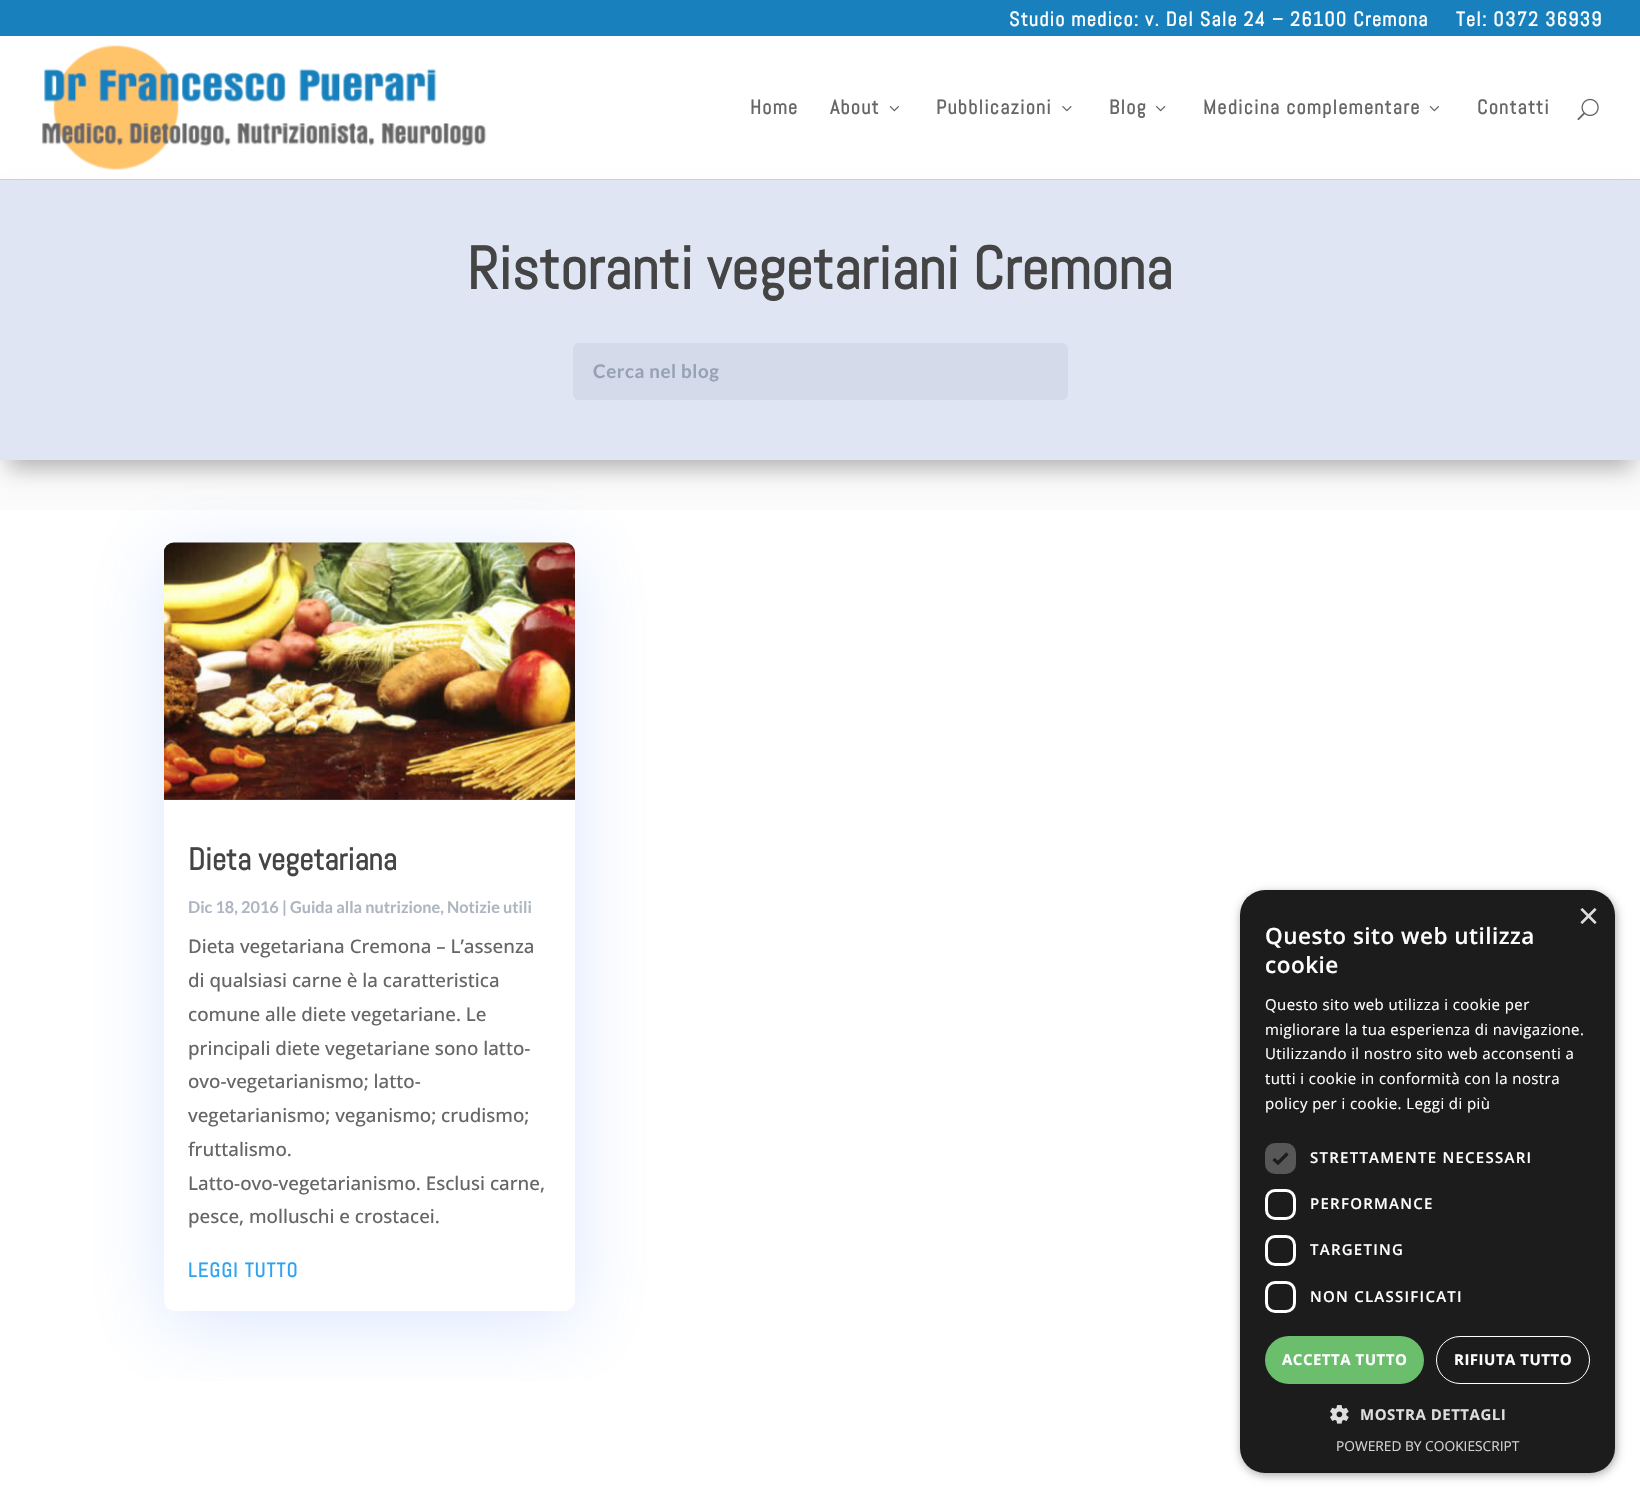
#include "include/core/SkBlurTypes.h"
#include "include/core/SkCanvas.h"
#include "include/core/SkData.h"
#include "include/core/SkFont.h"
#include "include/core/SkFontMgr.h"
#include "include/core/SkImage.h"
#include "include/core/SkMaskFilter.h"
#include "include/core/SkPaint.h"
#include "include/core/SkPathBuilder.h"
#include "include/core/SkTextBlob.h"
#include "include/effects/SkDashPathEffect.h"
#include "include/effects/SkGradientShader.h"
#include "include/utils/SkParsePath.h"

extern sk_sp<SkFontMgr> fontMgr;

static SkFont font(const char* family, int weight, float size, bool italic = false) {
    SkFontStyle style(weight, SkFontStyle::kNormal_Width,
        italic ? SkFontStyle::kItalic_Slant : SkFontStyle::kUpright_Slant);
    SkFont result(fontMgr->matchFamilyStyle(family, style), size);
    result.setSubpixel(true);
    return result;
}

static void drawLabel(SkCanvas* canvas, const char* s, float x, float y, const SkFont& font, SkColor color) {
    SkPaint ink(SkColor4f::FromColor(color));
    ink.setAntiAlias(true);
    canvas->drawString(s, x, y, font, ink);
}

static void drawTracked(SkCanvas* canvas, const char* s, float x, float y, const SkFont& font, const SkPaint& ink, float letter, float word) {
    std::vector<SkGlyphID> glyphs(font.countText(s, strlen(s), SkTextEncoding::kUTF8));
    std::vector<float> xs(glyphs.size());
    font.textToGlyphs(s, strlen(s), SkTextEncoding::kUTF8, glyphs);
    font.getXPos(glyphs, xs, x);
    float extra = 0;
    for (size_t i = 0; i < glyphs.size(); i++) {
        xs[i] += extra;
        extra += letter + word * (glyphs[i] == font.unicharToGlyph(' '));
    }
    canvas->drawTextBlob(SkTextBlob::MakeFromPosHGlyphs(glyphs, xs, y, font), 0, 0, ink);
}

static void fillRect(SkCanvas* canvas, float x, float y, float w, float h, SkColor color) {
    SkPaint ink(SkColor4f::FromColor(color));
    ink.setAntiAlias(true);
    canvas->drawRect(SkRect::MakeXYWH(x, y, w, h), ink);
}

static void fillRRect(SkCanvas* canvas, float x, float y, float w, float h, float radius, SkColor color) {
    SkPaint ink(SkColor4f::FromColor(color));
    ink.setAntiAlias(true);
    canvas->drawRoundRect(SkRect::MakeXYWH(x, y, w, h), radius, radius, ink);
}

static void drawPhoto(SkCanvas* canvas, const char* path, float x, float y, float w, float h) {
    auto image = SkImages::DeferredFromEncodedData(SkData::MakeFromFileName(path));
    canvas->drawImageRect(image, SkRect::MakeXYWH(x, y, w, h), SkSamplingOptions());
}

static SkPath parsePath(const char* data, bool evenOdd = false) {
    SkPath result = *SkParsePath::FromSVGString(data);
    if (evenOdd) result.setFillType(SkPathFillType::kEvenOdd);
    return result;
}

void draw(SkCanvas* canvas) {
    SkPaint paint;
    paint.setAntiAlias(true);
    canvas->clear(0xFFFFFFFF);
    fillRect(canvas, 0, 0, 1640, 36, 0xFF1880BC);
    SkFont font1 = font("Abel", 700, 20);
    paint.setColor(0xFFFFFFFF);
    drawTracked(canvas, "Studio medico: v. Del Sale 24 – 26100 Cremona", 1009, 26, font1, paint, 1.25f, 0);
    drawTracked(canvas, "Tel: 0372 36939", 1456, 26, font1, paint, 1.25f, 0);
    fillRect(canvas, 0, 460, 1640, 50, 0xFFFBFBFB);
    paint.setColor(0x4D000000);
    paint.setMaskFilter(SkMaskFilter::MakeBlur(kNormal_SkBlurStyle, 11));
    canvas->drawRect(SkRect::MakeXYWH(8, 201, 1625, 267), paint);
    paint.setMaskFilter(nullptr);
    fillRect(canvas, 0, 179, 1640, 1, 0xFFC9CEDB);
    drawPhoto(canvas, "assets/img1.png", 42, 45, 445, 125);
    paint.setColor(0xFF666666);
    drawTracked(canvas, "Home", 750, 114, font1, paint, 1.25f, 0);
    drawTracked(canvas, "About", 830, 114, font1, paint, 1.25f, 0);
    drawPhoto(canvas, "assets/img2.png", 889, 106, 10, 6);
    drawTracked(canvas, "Pubblicazioni", 936, 114, font1, paint, 1.25f, 0);
    drawPhoto(canvas, "assets/img3.png", 1062, 106, 10, 6);
    drawTracked(canvas, "Blog", 1109, 114, font1, paint, 1.25f, 0);
    drawPhoto(canvas, "assets/img4.png", 1156, 106, 10, 6);
    drawTracked(canvas, "Medicina complementare", 1203, 114, font1, paint, 1.25f, 0);
    drawPhoto(canvas, "assets/img2.png", 1429, 106, 10, 6);
    drawTracked(canvas, "Contatti", 1477, 114, font1, paint, 1.25f, 0);
    drawPhoto(canvas, "assets/img5.png", 1577, 98, 22, 23);
    canvas->save();
    canvas->clipRect(SkRect::MakeXYWH(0, 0, 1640, 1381));
    paint.setColor(0x3D6797FF);
    paint.setMaskFilter(SkMaskFilter::MakeBlur(kNormal_SkBlurStyle, 37.5f));
    canvas->drawRoundRect(SkRect::MakeXYWH(164, 555, 411, 769), 10, 10, paint);
    paint.setMaskFilter(nullptr);
    canvas->restore();
    fillRect(canvas, 0, 180, 1640, 280, 0xFFDFE5F3);
    SkFont font2 = font("Abel", 700, 60);
    drawLabel(canvas, "Ristoranti vegetariani Cremona", 467, 289, font2, 0xFF444444);
    fillRRect(canvas, 573, 343, 495, 57, 6, 0xFFD4DAE9);
    SkFont font3 = font("Lato", 700, 18.75f);
    paint.setColor(0xFF96A2B4);
    drawTracked(canvas, "Cerca nel blog", 593, 378, font3, paint, 0.6f, 0);
    fillRRect(canvas, 164, 543, 411, 768, 10, 0xFFFFFFFF);
    drawPhoto(canvas, "assets/img6.png", 164, 542, 411, 258);
    SkFont font4 = font("Abel", 700, 31.25f);
    drawLabel(canvas, "Dieta vegetariana", 188, 870, font4, 0xFF444444);
    SkFont font5 = font("Lato", 700, 16.25f);
    drawLabel(canvas, "Dic 18, 2016 | Guida alla nutrizione, Notizie utili", 188, 913, font5, 0xFFADB6C1);
    SkFont font6 = font("Open Sans", 500, 18.75f);
    drawLabel(canvas, "Dieta vegetariana Cremona – L’assenza", 188, 953, font6, 0xFF666666);
    drawLabel(canvas, "di qualsiasi carne è la caratteristica", 188, 987, font6, 0xFF666666);
    drawLabel(canvas, "comune alle diete vegetariane. Le", 188, 1021, font6, 0xFF666666);
    drawLabel(canvas, "principali diete vegetariane sono latto-", 188, 1055, font6, 0xFF666666);
    drawLabel(canvas, "ovo-vegetarianismo; latto-", 188, 1088, font6, 0xFF666666);
    drawLabel(canvas, "vegetarianismo; veganismo; crudismo;", 188, 1122, font6, 0xFF666666);
    drawLabel(canvas, "fruttalismo.", 188, 1156, font6, 0xFF666666);
    drawLabel(canvas, "Latto-ovo-vegetarianismo. Esclusi carne,", 188, 1190, font6, 0xFF666666);
    drawLabel(canvas, "pesce, molluschi e crostacei.", 188, 1223, font6, 0xFF666666);
    paint.setColor(0xFF2EA3F2);
    drawTracked(canvas, "LEGGI TUTTO", 188, 1277, font1, paint, 1.25f, 0);
    paint.setColor(0x59000000);
    paint.setMaskFilter(SkMaskFilter::MakeBlur(kNormal_SkBlurStyle, 5));
    canvas->drawRoundRect(SkRect::MakeXYWH(1241, 893, 375, 582), 25, 25, paint);
    paint.setMaskFilter(nullptr);
    fillRRect(canvas, 1240, 890, 375, 583, 25, 0xFF1C1C1C);
    SkFont font7 = font("Liberation Sans", 400, 36);
    drawLabel(canvas, "×", 1578, 928, font7, 0xFFDDDDDD);
    SkFont font8 = font("Open Sans", 600, 22.5f);
    paint.setColor(0xFFFFFFFF);
    drawTracked(canvas, "Questo sito web utilizza", 1265, 944, font8, paint, 0.5f, 0);
    drawTracked(canvas, "cookie", 1265, 973, font8, paint, 0.5f, 0);
    SkFont font9 = font("Open Sans", 400, 15);
    drawTracked(canvas, "Questo sito web utilizza i cookie per", 1265, 1010, font9, paint, 0.4f, 0);
    drawTracked(canvas, "migliorare la tua esperienza di navigazione.", 1265, 1035, font9, paint, 0.4f, 0);
    drawTracked(canvas, "Utilizzando il nostro sito web acconsenti a", 1265, 1059, font9, paint, 0.4f, 0);
    drawTracked(canvas, "tutti i cookie in conformità con la nostra", 1265, 1084, font9, paint, 0.4f, 0);
    drawTracked(canvas, "policy per i cookie. Leggi di più", 1265, 1109, font9, paint, 0.4f, 0);
    fillRRect(canvas, 1265, 1143, 31, 31, 10, 0xFF575757);
    paint.setStroke(true);
    paint.setStrokeWidth(3.3f);
    paint.setColor(0xFF1C1C1C);
    canvas->drawPath(parsePath("M1273.5 1159L1278 1163L1287.5 1153.5"), paint);
    SkFont font10 = font("Open Sans", 600, 15);
    paint.setStroke(false);
    paint.setColor(0xFFFFFFFF);
    drawTracked(canvas, "STRETTAMENTE NECESSARI", 1310, 1163, font10, paint, 1.25f, 0);
    paint.setStroke(true);
    paint.setStrokeWidth(3);
    canvas->drawRoundRect(SkRect::MakeXYWH(1266.5f, 1190.5f, 28, 28), 8.5f, 8.5f, paint);
    paint.setStroke(false);
    drawTracked(canvas, "PERFORMANCE", 1310, 1209, font10, paint, 1.25f, 0);
    paint.setStroke(true);
    canvas->drawRoundRect(SkRect::MakeXYWH(1266.5f, 1236.5f, 28, 28), 8.5f, 8.5f, paint);
    paint.setStroke(false);
    drawTracked(canvas, "TARGETING", 1310, 1255, font10, paint, 1.25f, 0);
    paint.setStroke(true);
    canvas->drawRoundRect(SkRect::MakeXYWH(1266.5f, 1282.5f, 28, 29), 8.5f, 8.5f, paint);
    paint.setStroke(false);
    drawTracked(canvas, "NON CLASSIFICATI", 1310, 1302, font10, paint, 1.25f, 0);
    fillRRect(canvas, 1265, 1336, 159, 48, 24, 0xFF6BBE6B);
    SkFont font11 = font("Open Sans", 700, 15);
    drawTracked(canvas, "ACCETTA TUTTO", 1282, 1365, font11, paint, 0.5f, 0);
    paint.setStroke(true);
    paint.setStrokeWidth(1);
    canvas->drawRoundRect(SkRect::MakeXYWH(1436.5f, 1336.5f, 153, 47), 23.5f, 23.5f, paint);
    paint.setStroke(false);
    drawTracked(canvas, "RIFIUTA TUTTO", 1454, 1365, font11, paint, 0.5f, 0);
    drawPhoto(canvas, "assets/img7.png", 1330, 1405, 19, 19);
    paint.setColor(0xFFDDDDDD);
    drawTracked(canvas, "MOSTRA DETTAGLI", 1360, 1420, font11, paint, 0.5f, 0);
    SkFont font12 = font("Open Sans", 400, 13.75f);
    drawLabel(canvas, "POWERED BY COOKIESCRIPT", 1336, 1451, font12, 0xFFD2D2D2);
}
